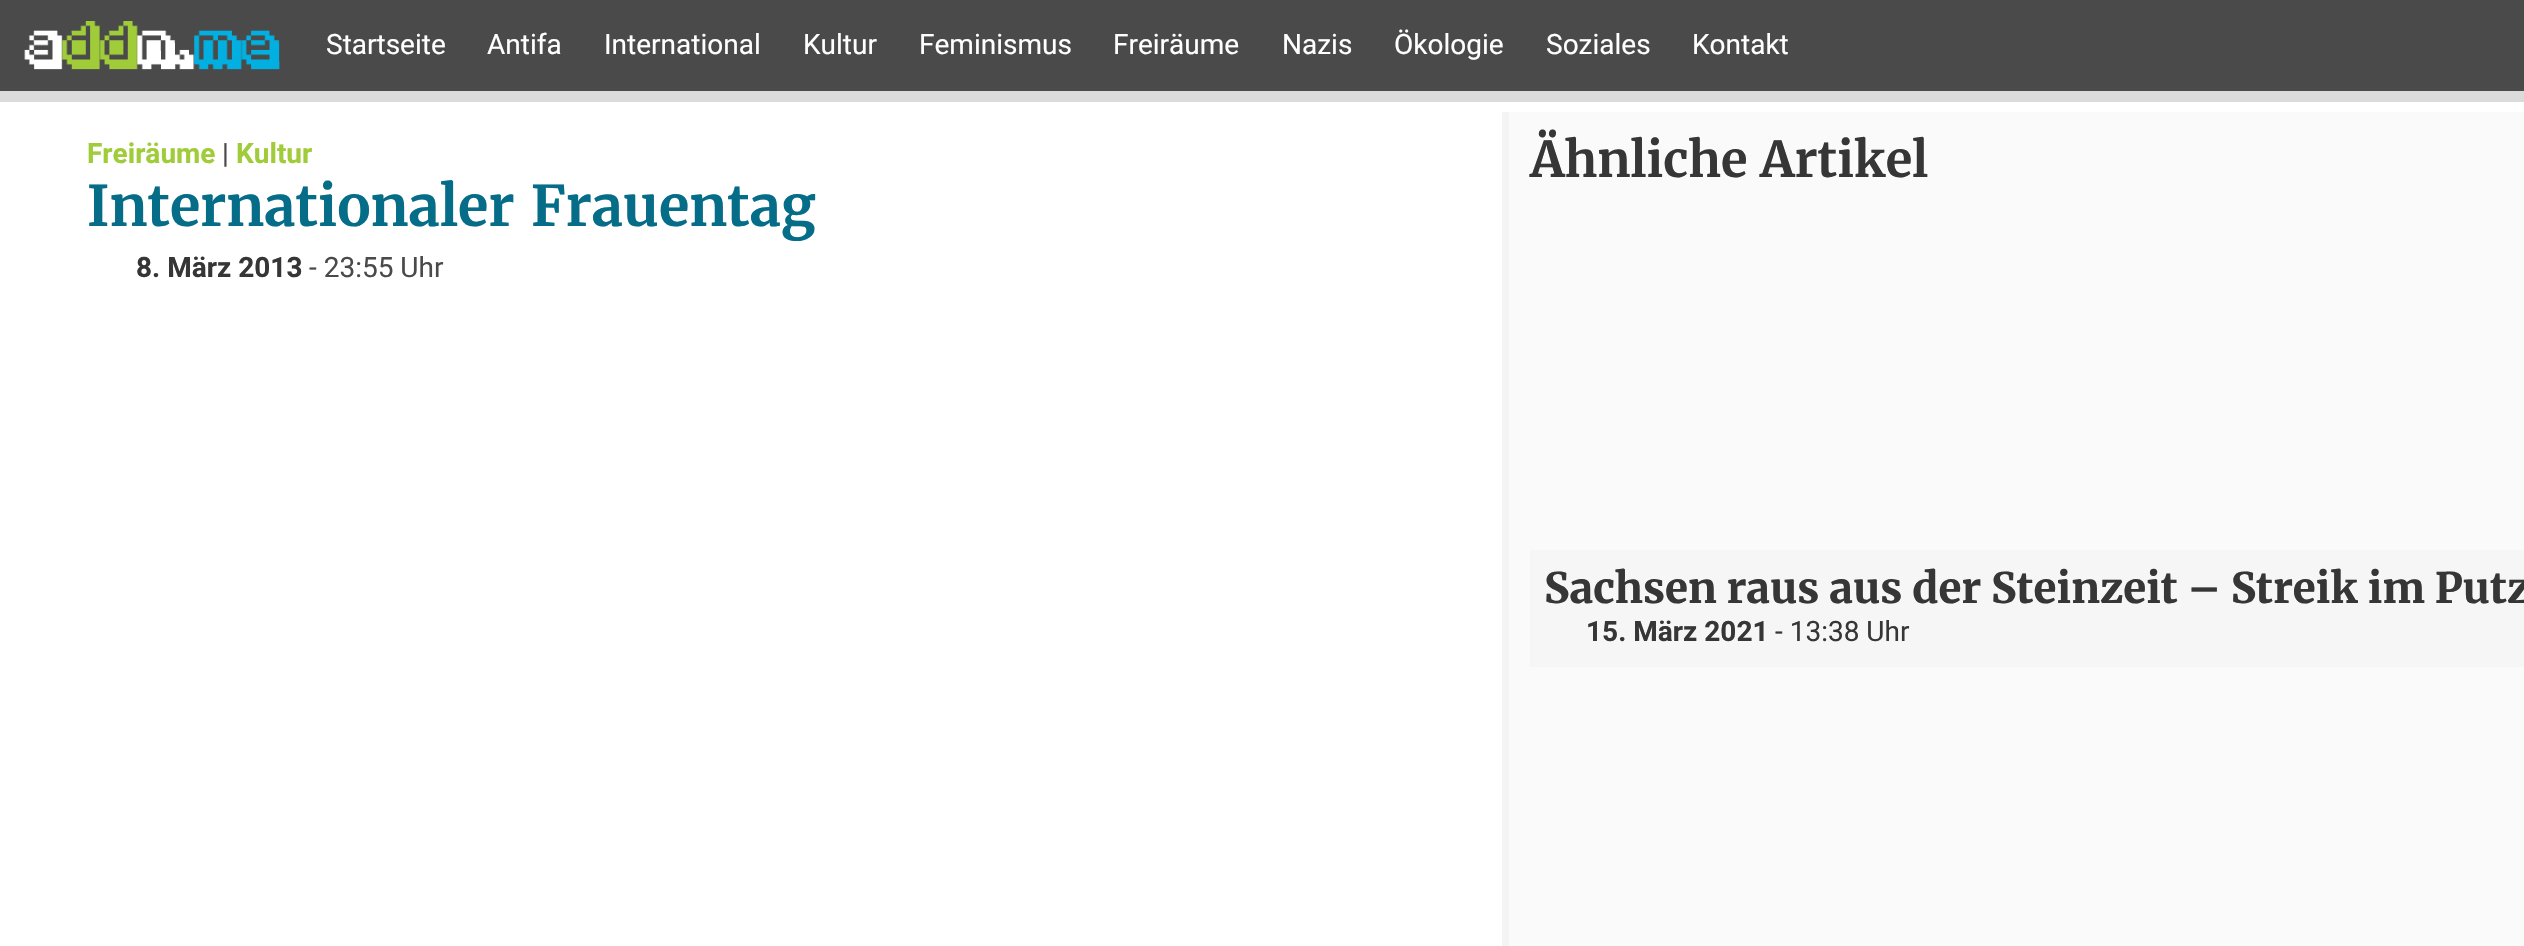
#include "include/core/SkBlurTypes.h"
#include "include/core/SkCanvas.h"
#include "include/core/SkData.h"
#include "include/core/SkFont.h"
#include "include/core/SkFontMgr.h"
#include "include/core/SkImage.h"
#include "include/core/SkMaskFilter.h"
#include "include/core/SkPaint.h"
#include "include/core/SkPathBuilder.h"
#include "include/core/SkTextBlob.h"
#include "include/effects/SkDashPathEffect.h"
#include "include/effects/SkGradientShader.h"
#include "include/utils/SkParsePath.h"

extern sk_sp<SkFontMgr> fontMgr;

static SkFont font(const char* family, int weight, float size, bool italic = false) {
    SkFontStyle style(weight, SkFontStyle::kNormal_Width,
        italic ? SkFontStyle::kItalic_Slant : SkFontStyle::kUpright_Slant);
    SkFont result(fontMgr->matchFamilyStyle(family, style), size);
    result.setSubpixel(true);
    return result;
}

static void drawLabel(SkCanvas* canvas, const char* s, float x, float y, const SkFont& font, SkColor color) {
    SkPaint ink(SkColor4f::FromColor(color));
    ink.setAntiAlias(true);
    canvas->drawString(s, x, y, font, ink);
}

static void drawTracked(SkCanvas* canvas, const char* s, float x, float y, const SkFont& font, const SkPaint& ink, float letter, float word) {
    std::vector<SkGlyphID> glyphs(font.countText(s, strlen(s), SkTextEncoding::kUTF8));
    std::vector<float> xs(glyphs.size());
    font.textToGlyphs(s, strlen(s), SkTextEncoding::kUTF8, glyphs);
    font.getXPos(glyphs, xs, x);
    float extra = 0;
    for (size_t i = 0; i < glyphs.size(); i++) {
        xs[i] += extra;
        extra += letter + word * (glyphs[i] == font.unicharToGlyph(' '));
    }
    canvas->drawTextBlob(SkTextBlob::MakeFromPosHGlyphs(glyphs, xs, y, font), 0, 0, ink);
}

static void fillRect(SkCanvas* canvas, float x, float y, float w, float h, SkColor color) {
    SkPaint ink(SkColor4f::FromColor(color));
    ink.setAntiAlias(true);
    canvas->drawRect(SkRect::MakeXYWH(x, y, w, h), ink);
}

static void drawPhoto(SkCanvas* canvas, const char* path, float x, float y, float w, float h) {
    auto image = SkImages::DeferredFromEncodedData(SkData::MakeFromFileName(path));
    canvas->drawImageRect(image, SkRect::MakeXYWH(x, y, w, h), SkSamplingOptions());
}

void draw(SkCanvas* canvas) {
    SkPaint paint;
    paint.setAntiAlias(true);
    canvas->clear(0xFFFFFFFF);
    fillRect(canvas, 0, 0, 2524, 91, 0xFF4A4A4A);
    drawPhoto(canvas, "assets/img1.png", 24, 21, 256, 49);
    SkFont font1 = font("Roboto", 400, 28);
    drawLabel(canvas, "Startseite", 326, 54, font1, 0xFFFFFFFF);
    drawLabel(canvas, "Antifa", 487, 54, font1, 0xFFFFFFFF);
    drawLabel(canvas, "International", 604, 54, font1, 0xFFFFFFFF);
    drawLabel(canvas, "Kultur", 803, 54, font1, 0xFFFFFFFF);
    drawLabel(canvas, "Feminismus", 919, 54, font1, 0xFFFFFFFF);
    drawLabel(canvas, "Freiräume", 1113, 54, font1, 0xFFFFFFFF);
    drawLabel(canvas, "Nazis", 1282, 54, font1, 0xFFFFFFFF);
    drawLabel(canvas, "Ökologie", 1394, 54, font1, 0xFFFFFFFF);
    drawLabel(canvas, "Soziales", 1546, 54, font1, 0xFFFFFFFF);
    drawLabel(canvas, "Kontakt", 1692, 54, font1, 0xFFFFFFFF);
    fillRect(canvas, 0, 91, 2524, 11, 0xFFDBDBDB);
    SkFont font2 = font("Roboto", 700, 28);
    drawLabel(canvas, "Freiräume", 87, 163, font2, 0xFFA0CC3A);
    drawLabel(canvas, "|", 222, 163, font1, 0xFF4A4A4A);
    drawLabel(canvas, "Kultur", 236, 163, font2, 0xFFA0CC3A);
    SkFont font3 = font("Merriweather", 700, 56);
    paint.setColor(0xFF066D89);
    drawTracked(canvas, "Internationaler Frauentag", 87, 226, font3, paint, 0, 3);
    drawLabel(canvas, "8. März 2013", 136, 277, font2, 0xFF363636);
    drawLabel(canvas, "- 23:55 Uhr", 309, 277, font1, 0xFF4A4A4A);
    fillRect(canvas, 1509, 112, 1015, 834, 0xFFFAFAFA);
    fillRect(canvas, 1502, 112, 7, 834, 0xFFF4F4F4);
    SkFont font4 = font("Merriweather", 700, 49);
    paint.setColor(0xFF363636);
    drawTracked(canvas, "Ähnliche Artikel", 1530, 177, font4, paint, 0, 1);
    fillRect(canvas, 1530, 550, 994, 117, 0xFFF6F6F6);
    SkFont font5 = font("Merriweather", 800, 42);
    drawLabel(canvas, "Sachsen raus aus der Steinzeit – Streik im Putz", 1544, 603, font5, 0xFF363636);
    drawLabel(canvas, "15. März 2021", 1586, 641, font2, 0xFF363636);
    drawLabel(canvas, "- 13:38 Uhr", 1775, 641, font1, 0xFF363636);
}
